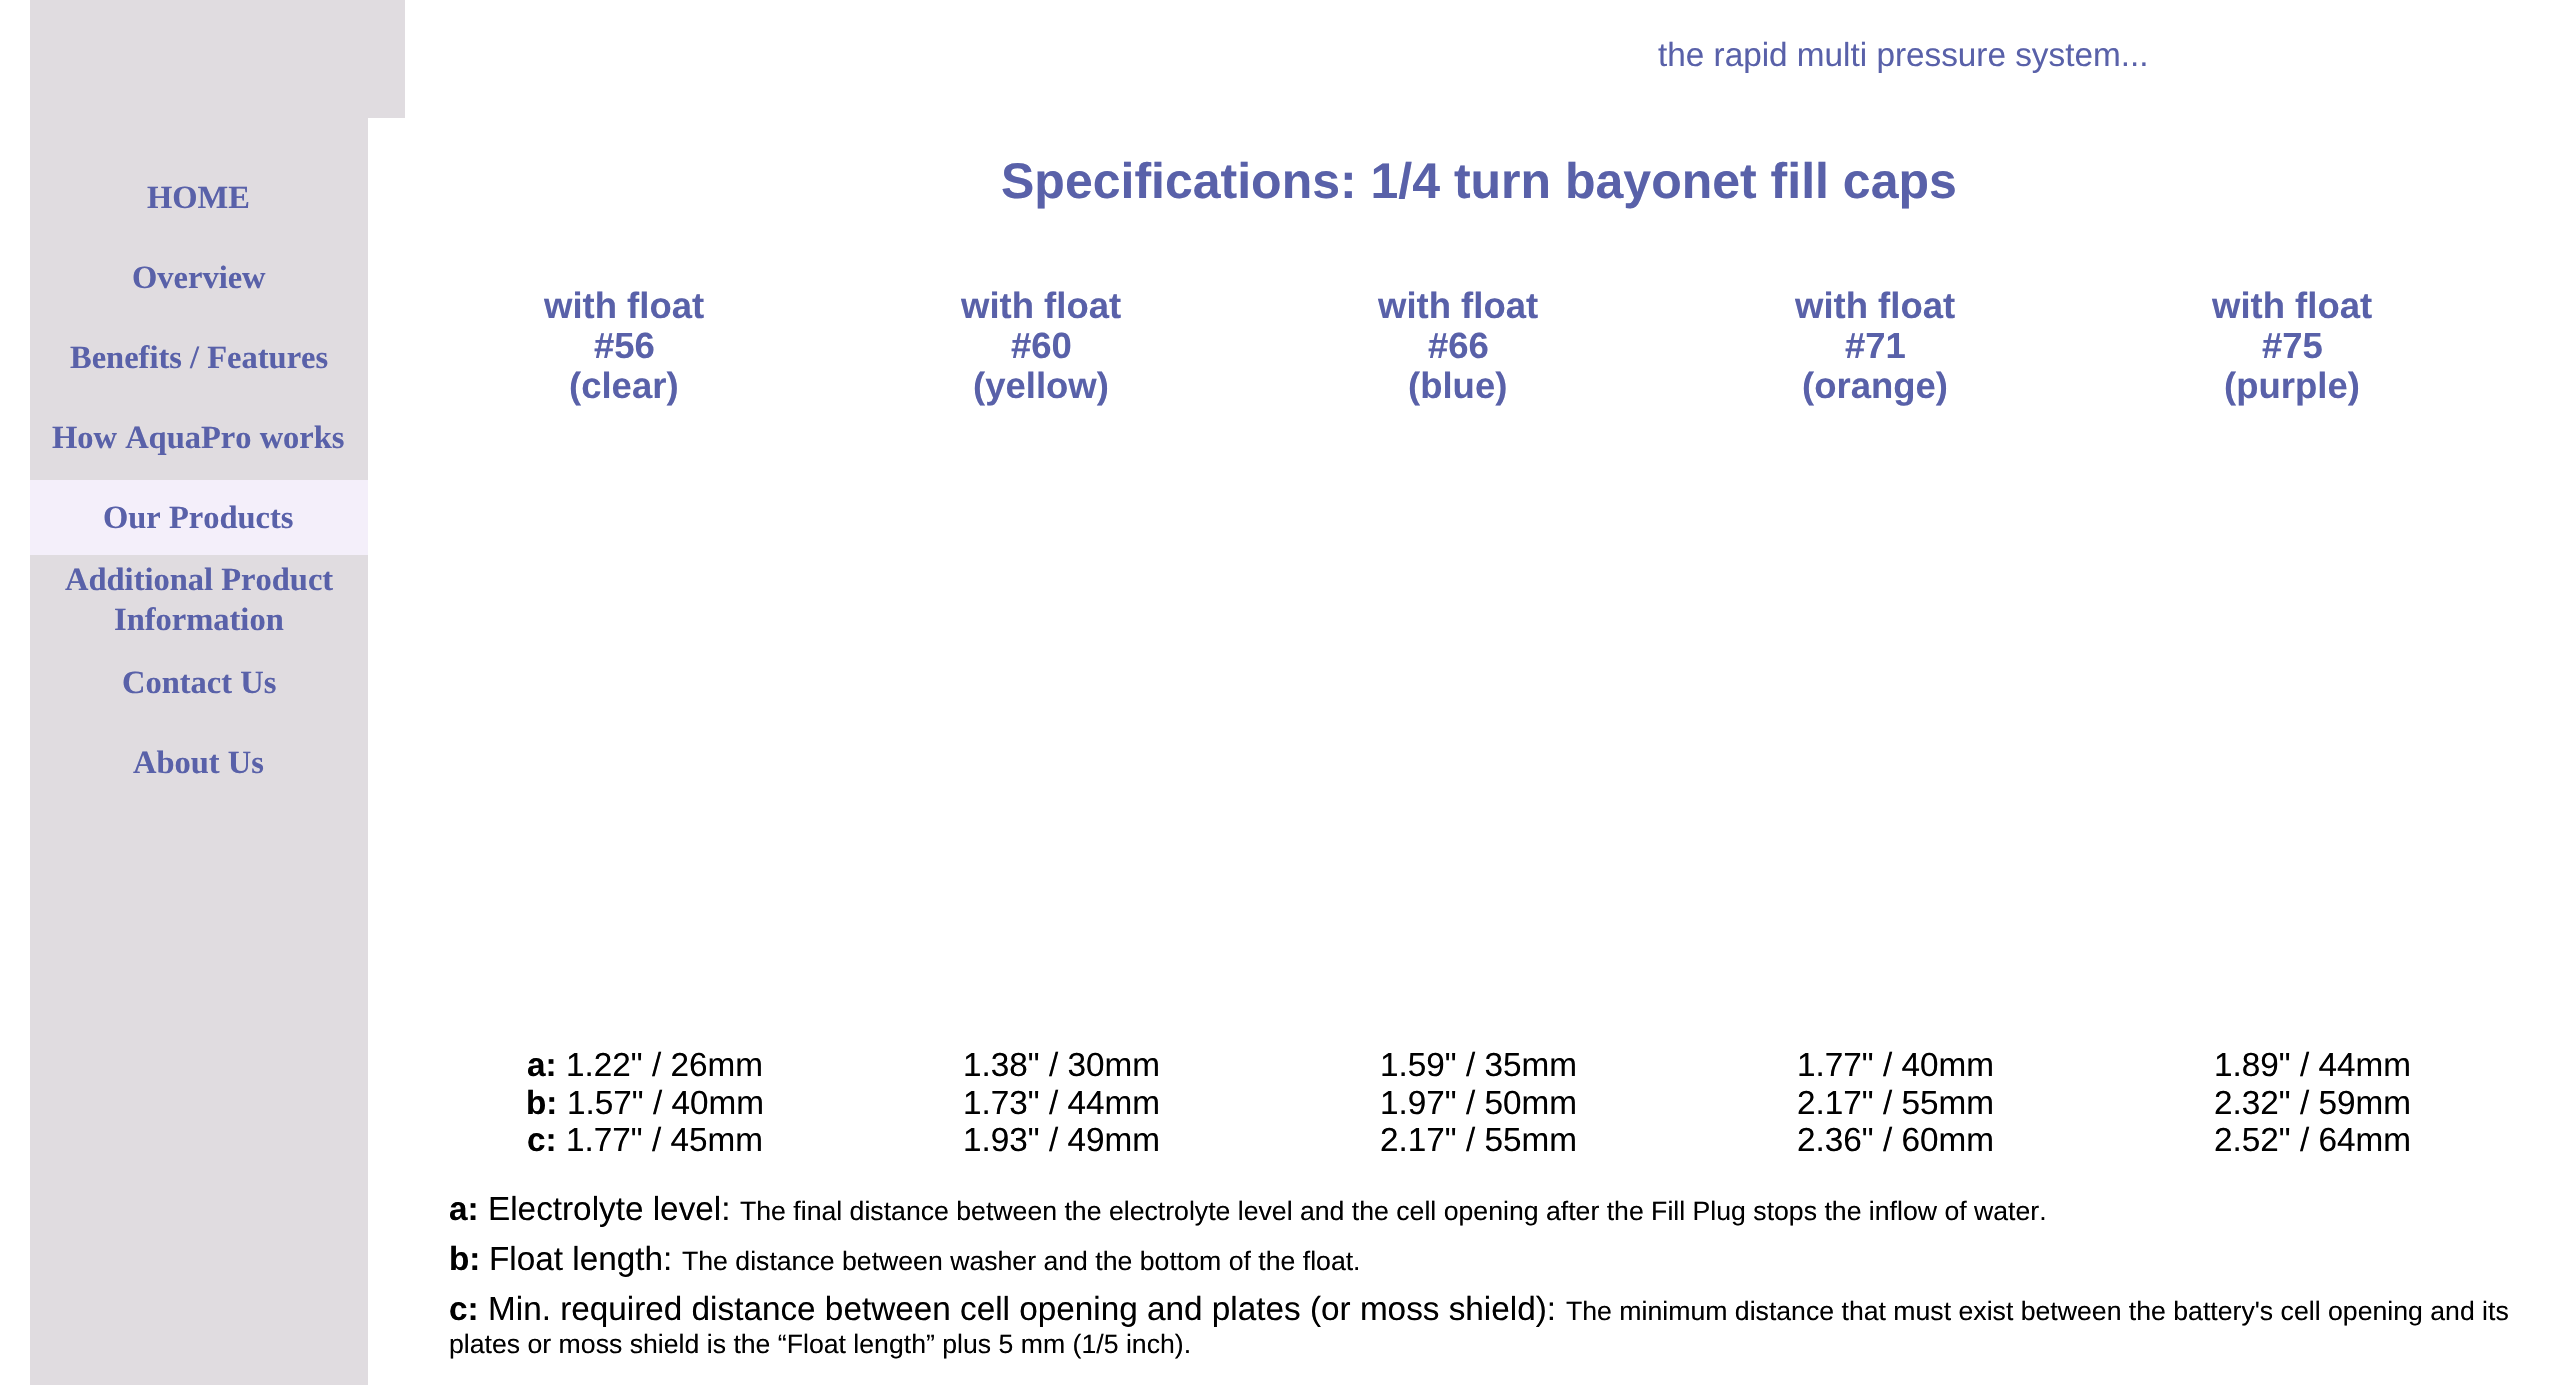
#include "include/core/SkBlurTypes.h"
#include "include/core/SkCanvas.h"
#include "include/core/SkData.h"
#include "include/core/SkFont.h"
#include "include/core/SkFontMgr.h"
#include "include/core/SkImage.h"
#include "include/core/SkMaskFilter.h"
#include "include/core/SkPaint.h"
#include "include/core/SkPathBuilder.h"
#include "include/core/SkTextBlob.h"
#include "include/effects/SkDashPathEffect.h"
#include "include/effects/SkGradientShader.h"
#include "include/utils/SkParsePath.h"

extern sk_sp<SkFontMgr> fontMgr;

static SkFont font(const char* family, int weight, float size, bool italic = false) {
    SkFontStyle style(weight, SkFontStyle::kNormal_Width,
        italic ? SkFontStyle::kItalic_Slant : SkFontStyle::kUpright_Slant);
    SkFont result(fontMgr->matchFamilyStyle(family, style), size);
    result.setSubpixel(true);
    return result;
}

static void drawLabel(SkCanvas* canvas, const char* s, float x, float y, const SkFont& font, SkColor color) {
    SkPaint ink(SkColor4f::FromColor(color));
    ink.setAntiAlias(true);
    canvas->drawString(s, x, y, font, ink);
}

static void fillRect(SkCanvas* canvas, float x, float y, float w, float h, SkColor color) {
    SkPaint ink(SkColor4f::FromColor(color));
    ink.setAntiAlias(true);
    canvas->drawRect(SkRect::MakeXYWH(x, y, w, h), ink);
}

void draw(SkCanvas* canvas) {
    SkPaint paint;
    paint.setAntiAlias(true);
    canvas->clear(0xFFFFFFFF);
    fillRect(canvas, 30, 0, 375, 118, 0xFFE0DCE0);
    SkFont font1 = font("Liberation Sans", 400, 33.3f);
    drawLabel(canvas, "the rapid multi pressure system...", 1658, 66, font1, 0xFF5961A9);
    fillRect(canvas, 30, 118, 338, 1267, 0xFFE0DCE0);
    SkFont font2 = font("Liberation Serif", 700, 32.5f);
    drawLabel(canvas, "HOME", 147, 208, font2, 0xFF5961A9);
    drawLabel(canvas, "Overview", 132, 288, font2, 0xFF5961A9);
    drawLabel(canvas, "Benefits / Features", 70, 368, font2, 0xFF5961A9);
    drawLabel(canvas, "How AquaPro works", 52, 448, font2, 0xFF5961A9);
    fillRect(canvas, 30, 480, 338, 75, 0xFFF4EFFA);
    drawLabel(canvas, "Our Products", 103, 528, font2, 0xFF5961A9);
    drawLabel(canvas, "Additional Product", 65, 590, font2, 0xFF5961A9);
    drawLabel(canvas, "Information", 114, 630, font2, 0xFF5961A9);
    drawLabel(canvas, "Contact Us", 122, 693, font2, 0xFF5961A9);
    drawLabel(canvas, "About Us", 133, 773, font2, 0xFF5961A9);
    SkFont font3 = font("Liberation Sans", 700, 50);
    drawLabel(canvas, "Specifications: 1/4 turn bayonet fill caps", 1001, 198, font3, 0xFF5961A9);
    SkFont font4 = font("Liberation Sans", 700, 36.5f);
    drawLabel(canvas, "with float", 544, 318, font4, 0xFF5961A9);
    drawLabel(canvas, "#56", 594, 358, font4, 0xFF5961A9);
    drawLabel(canvas, "(clear)", 569, 398, font4, 0xFF5961A9);
    drawLabel(canvas, "with float", 961, 318, font4, 0xFF5961A9);
    drawLabel(canvas, "#60", 1011, 358, font4, 0xFF5961A9);
    drawLabel(canvas, "(yellow)", 973, 398, font4, 0xFF5961A9);
    drawLabel(canvas, "with float", 1378, 318, font4, 0xFF5961A9);
    drawLabel(canvas, "#66", 1428, 358, font4, 0xFF5961A9);
    drawLabel(canvas, "(blue)", 1408, 398, font4, 0xFF5961A9);
    drawLabel(canvas, "with float", 1795, 318, font4, 0xFF5961A9);
    drawLabel(canvas, "#71", 1845, 358, font4, 0xFF5961A9);
    drawLabel(canvas, "(orange)", 1802, 398, font4, 0xFF5961A9);
    drawLabel(canvas, "with float", 2212, 318, font4, 0xFF5961A9);
    drawLabel(canvas, "#75", 2262, 358, font4, 0xFF5961A9);
    drawLabel(canvas, "(purple)", 2224, 398, font4, 0xFF5961A9);
    SkFont font5 = font("Liberation Sans", 700, 33.3f);
    drawLabel(canvas, "a:", 527, 1076, font5, 0xFF000000);
    drawLabel(canvas, "1.22\" / 26mm", 566, 1076, font1, 0xFF000000);
    drawLabel(canvas, "b:", 526, 1114, font5, 0xFF000000);
    drawLabel(canvas, "1.57\" / 40mm", 567, 1114, font1, 0xFF000000);
    drawLabel(canvas, "c:", 527, 1151, font5, 0xFF000000);
    drawLabel(canvas, "1.77\" / 45mm", 566, 1151, font1, 0xFF000000);
    drawLabel(canvas, "1.38\" / 30mm", 963, 1076, font1, 0xFF000000);
    drawLabel(canvas, "1.73\" / 44mm", 963, 1114, font1, 0xFF000000);
    drawLabel(canvas, "1.93\" / 49mm", 963, 1151, font1, 0xFF000000);
    drawLabel(canvas, "1.59\" / 35mm", 1380, 1076, font1, 0xFF000000);
    drawLabel(canvas, "1.97\" / 50mm", 1380, 1114, font1, 0xFF000000);
    drawLabel(canvas, "2.17\" / 55mm", 1380, 1151, font1, 0xFF000000);
    drawLabel(canvas, "1.77\" / 40mm", 1797, 1076, font1, 0xFF000000);
    drawLabel(canvas, "2.17\" / 55mm", 1797, 1114, font1, 0xFF000000);
    drawLabel(canvas, "2.36\" / 60mm", 1797, 1151, font1, 0xFF000000);
    drawLabel(canvas, "1.89\" / 44mm", 2214, 1076, font1, 0xFF000000);
    drawLabel(canvas, "2.32\" / 59mm", 2214, 1114, font1, 0xFF000000);
    drawLabel(canvas, "2.52\" / 64mm", 2214, 1151, font1, 0xFF000000);
    drawLabel(canvas, "a:", 449, 1220, font5, 0xFF000000);
    drawLabel(canvas, "Electrolyte level:", 488, 1220, font1, 0xFF000000);
    SkFont font6 = font("Liberation Sans", 400, 26.65f);
    drawLabel(canvas, "The final distance between the electrolyte level and the cell opening after the Fill Plug stops the inflow of water.", 740, 1220, font6, 0xFF000000);
    drawLabel(canvas, "b:", 449, 1270, font5, 0xFF000000);
    drawLabel(canvas, "Float length:", 489, 1270, font1, 0xFF000000);
    drawLabel(canvas, "The distance between washer and the bottom of the float.", 682, 1270, font6, 0xFF000000);
    drawLabel(canvas, "c:", 449, 1320, font5, 0xFF000000);
    drawLabel(canvas, "Min. required distance between cell opening and plates (or moss shield):", 488, 1320, font1, 0xFF000000);
    drawLabel(canvas, "The minimum distance that must exist between the battery's cell opening and its", 1566, 1320, font6, 0xFF000000);
    drawLabel(canvas, "plates or moss shield is the “Float length” plus 5 mm (1/5 inch).", 449, 1353, font6, 0xFF000000);
}
